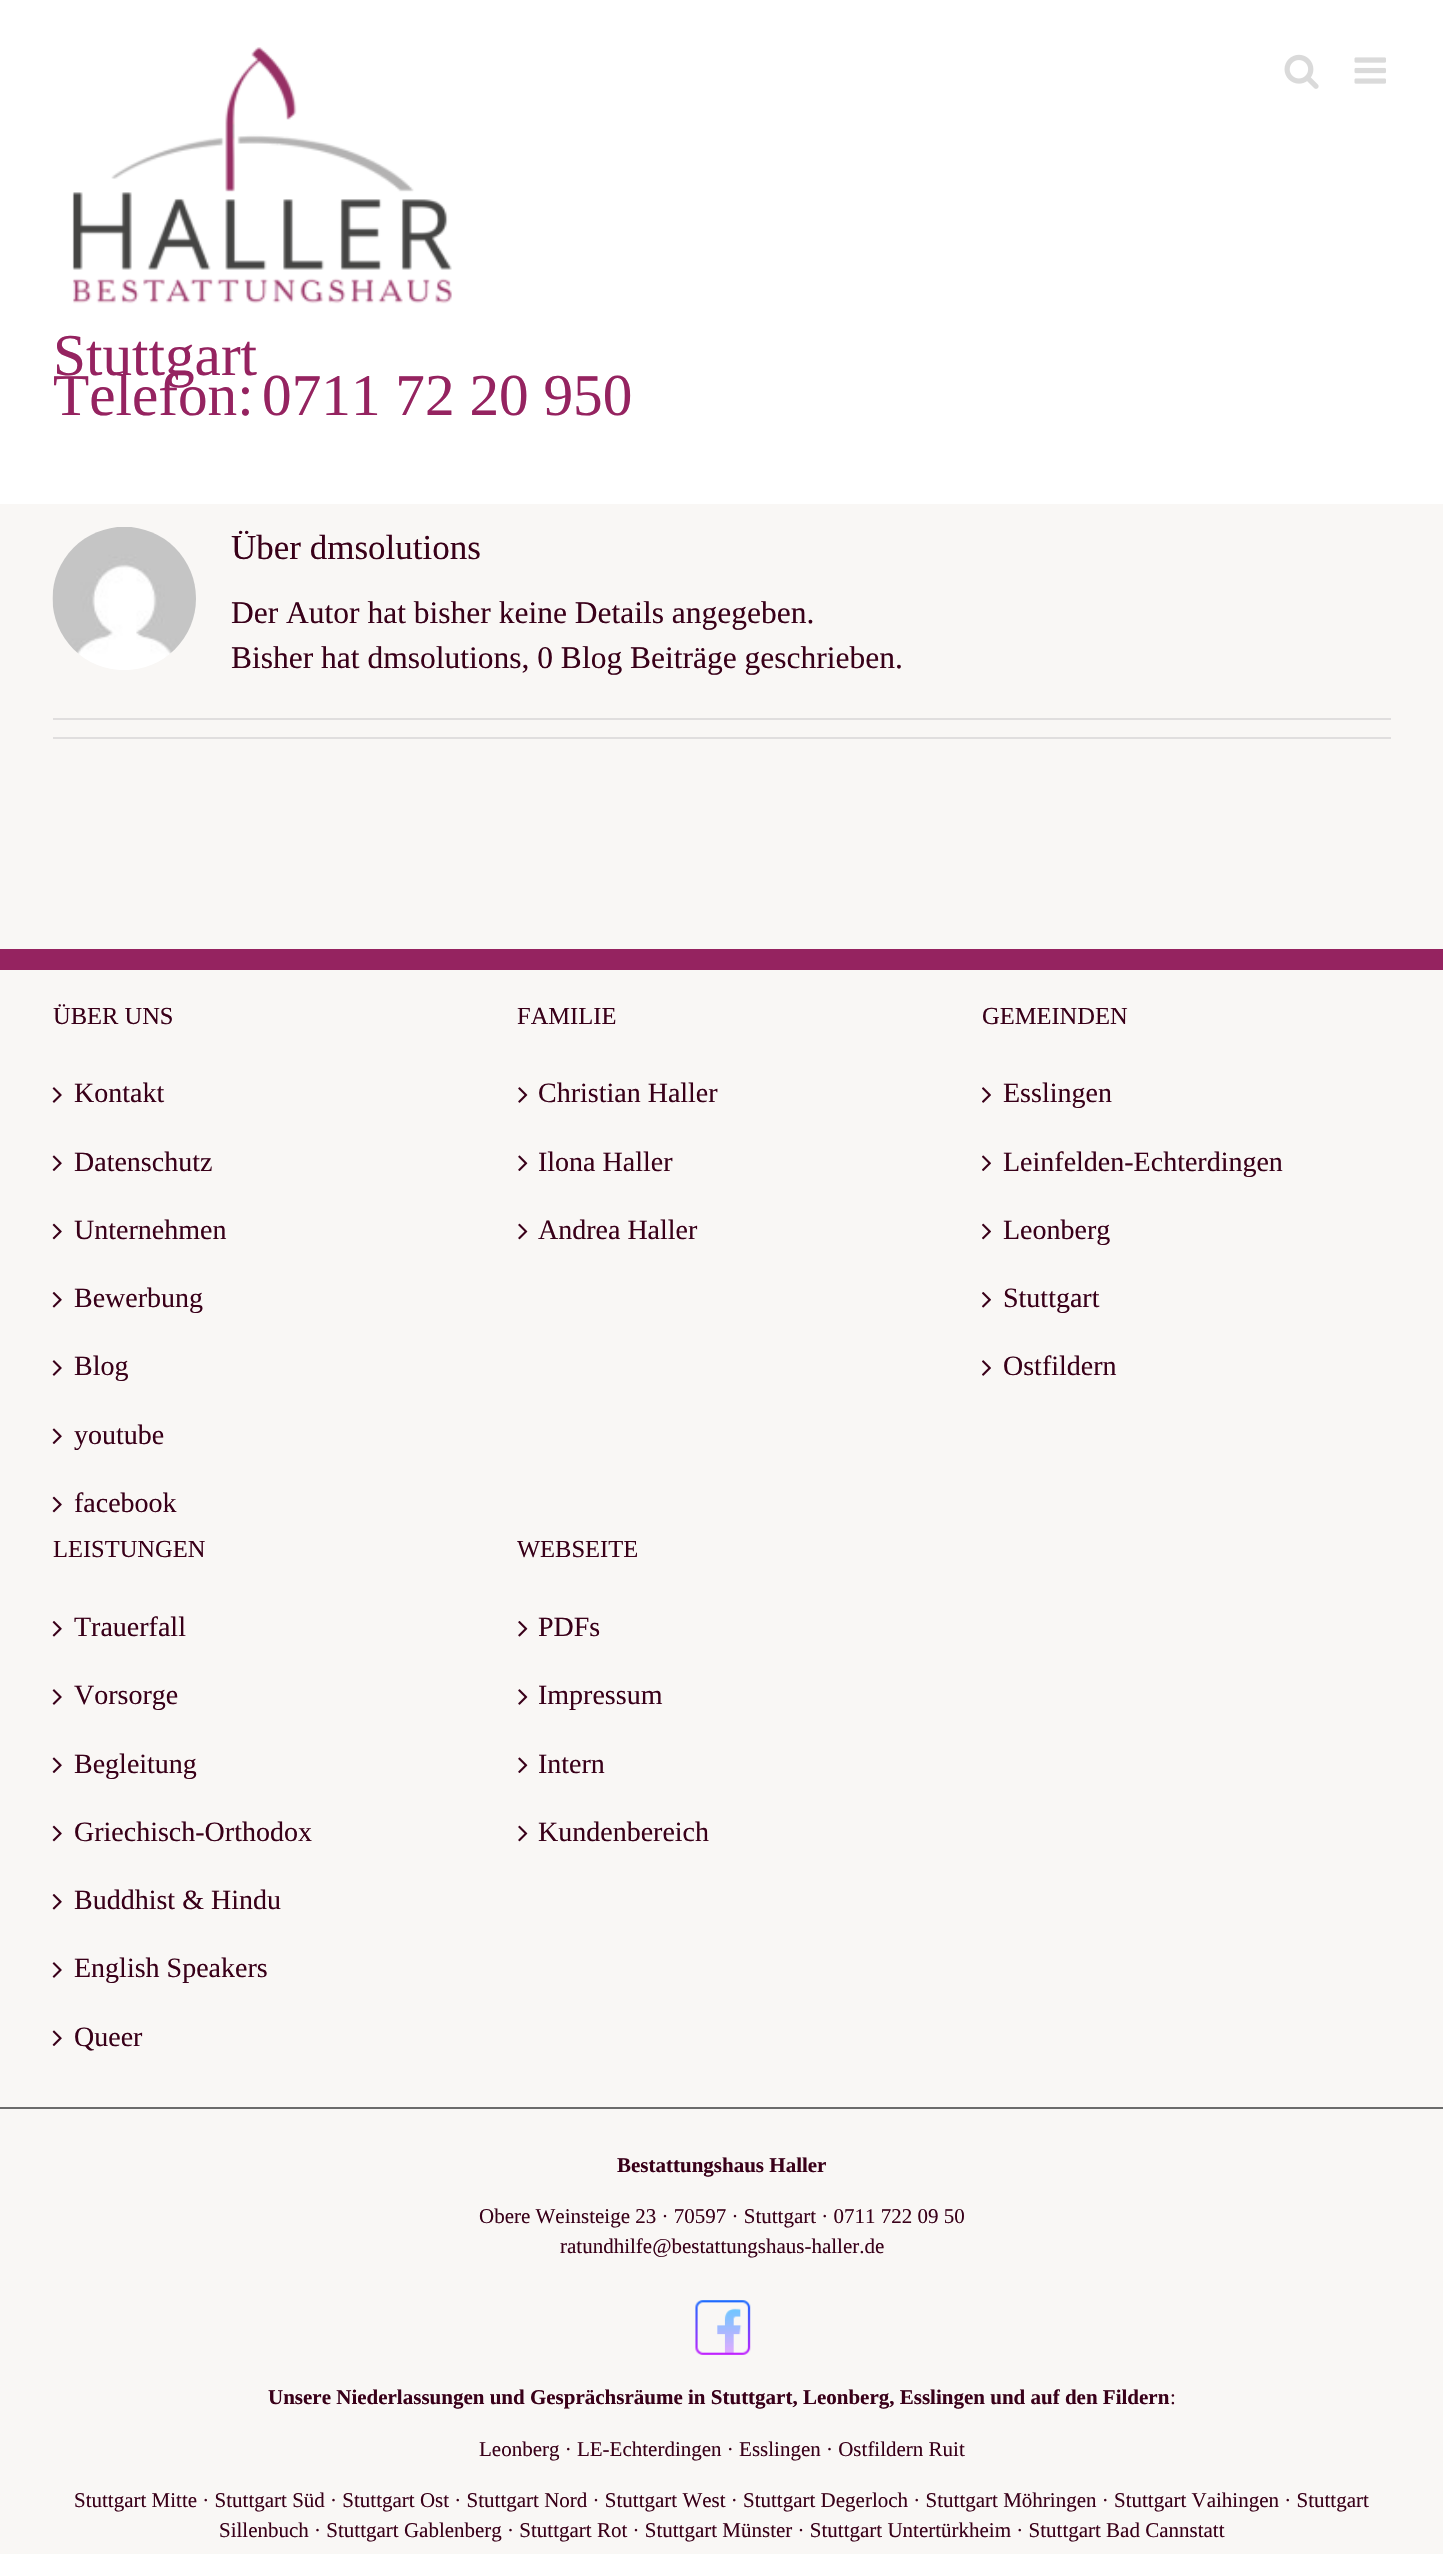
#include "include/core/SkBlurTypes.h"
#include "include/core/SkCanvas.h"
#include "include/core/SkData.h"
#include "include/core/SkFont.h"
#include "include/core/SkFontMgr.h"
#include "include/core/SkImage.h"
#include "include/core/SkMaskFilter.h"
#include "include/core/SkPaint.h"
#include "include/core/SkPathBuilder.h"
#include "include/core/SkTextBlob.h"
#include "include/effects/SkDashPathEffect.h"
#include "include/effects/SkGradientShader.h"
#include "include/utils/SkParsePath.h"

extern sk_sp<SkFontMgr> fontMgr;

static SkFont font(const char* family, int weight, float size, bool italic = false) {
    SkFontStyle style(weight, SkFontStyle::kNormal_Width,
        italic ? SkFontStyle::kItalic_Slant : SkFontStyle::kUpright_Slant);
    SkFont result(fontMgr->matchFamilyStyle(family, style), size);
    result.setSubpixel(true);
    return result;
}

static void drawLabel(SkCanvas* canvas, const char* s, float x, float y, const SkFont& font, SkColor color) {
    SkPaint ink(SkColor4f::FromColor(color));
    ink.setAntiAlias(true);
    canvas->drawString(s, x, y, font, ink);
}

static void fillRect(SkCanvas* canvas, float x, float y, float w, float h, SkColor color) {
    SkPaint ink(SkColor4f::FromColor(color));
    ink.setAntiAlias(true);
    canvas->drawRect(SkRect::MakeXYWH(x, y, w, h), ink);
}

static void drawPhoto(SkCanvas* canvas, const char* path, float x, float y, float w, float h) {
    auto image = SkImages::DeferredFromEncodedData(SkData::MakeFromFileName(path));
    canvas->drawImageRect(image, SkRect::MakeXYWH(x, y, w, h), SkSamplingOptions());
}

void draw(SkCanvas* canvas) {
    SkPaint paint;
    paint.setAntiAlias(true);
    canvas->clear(0xFFF9F7F5);
    fillRect(canvas, 0, 0, 1443, 504, 0xFFFFFFFF);
    drawPhoto(canvas, "assets/img1.png", 1284, 54, 35, 35);
    drawPhoto(canvas, "assets/img2.png", 1354, 57, 32, 27);
    drawPhoto(canvas, "assets/img3.png", 72, 47, 380, 257);
    SkFont font1 = font("Liberation Serif", 400, 59.25f);
    drawLabel(canvas, "Stuttgart", 53, 375, font1, 0xFF952360);
    drawLabel(canvas, "Telefon:", 53, 415, font1, 0xFF952360);
    drawLabel(canvas, "0711 72 20 950", 262, 415, font1, 0xFF952360);
    drawPhoto(canvas, "assets/img4.png", 52, 527, 144, 143);
    SkFont font2 = font("Liberation Serif", 400, 35);
    drawLabel(canvas, "Über dmsolutions", 231, 559, font2, 0xFF390019);
    SkFont font3 = font("Liberation Serif", 400, 31.5f);
    drawLabel(canvas, "Der Autor hat bisher keine Details angegeben.", 231, 623, font3, 0xFF390019);
    drawLabel(canvas, "Bisher hat dmsolutions, 0 Blog Beiträge geschrieben.", 231, 668, font3, 0xFF390019);
    fillRect(canvas, 53, 718, 1338, 2, 0xFFE0DEDE);
    fillRect(canvas, 53, 737, 1338, 2, 0xFFE0DEDE);
    fillRect(canvas, 0, 949, 1443, 21, 0xFF952360);
    SkFont font4 = font("Liberation Serif", 400, 24.5f);
    drawLabel(canvas, "ÜBER UNS", 53, 1024, font4, 0xFF390019);
    drawPhoto(canvas, "assets/img5.png", 52, 1087, 10, 16);
    SkFont font5 = font("Liberation Serif", 400, 28);
    drawLabel(canvas, "Kontakt", 74, 1102, font5, 0xFF390019);
    drawPhoto(canvas, "assets/img6.png", 52, 1155, 10, 16);
    drawLabel(canvas, "Datenschutz", 74, 1171, font5, 0xFF390019);
    drawPhoto(canvas, "assets/img7.png", 52, 1223, 10, 17);
    drawLabel(canvas, "Unternehmen", 74, 1239, font5, 0xFF390019);
    drawPhoto(canvas, "assets/img8.png", 52, 1292, 10, 16);
    drawLabel(canvas, "Bewerbung", 74, 1307, font5, 0xFF390019);
    drawPhoto(canvas, "assets/img5.png", 52, 1360, 10, 16);
    drawLabel(canvas, "Blog", 74, 1375, font5, 0xFF390019);
    drawPhoto(canvas, "assets/img6.png", 52, 1428, 10, 16);
    drawLabel(canvas, "youtube", 74, 1444, font5, 0xFF390019);
    drawPhoto(canvas, "assets/img7.png", 52, 1496, 10, 17);
    drawLabel(canvas, "facebook", 74, 1512, font5, 0xFF390019);
    drawLabel(canvas, "FAMILIE", 517, 1024, font4, 0xFF390019);
    drawPhoto(canvas, "assets/img9.png", 518, 1087, 10, 16);
    drawLabel(canvas, "Christian Haller", 538, 1102, font5, 0xFF390019);
    drawPhoto(canvas, "assets/img10.png", 518, 1155, 10, 16);
    drawLabel(canvas, "Ilona Haller", 538, 1171, font5, 0xFF390019);
    drawPhoto(canvas, "assets/img11.png", 518, 1223, 10, 17);
    drawLabel(canvas, "Andrea Haller", 538, 1239, font5, 0xFF390019);
    drawLabel(canvas, "GEMEINDEN", 982, 1024, font4, 0xFF390019);
    drawPhoto(canvas, "assets/img12.png", 982, 1087, 9, 16);
    drawLabel(canvas, "Esslingen", 1003, 1102, font5, 0xFF390019);
    drawPhoto(canvas, "assets/img13.png", 982, 1155, 9, 16);
    drawLabel(canvas, "Leinfelden-Echterdingen", 1003, 1171, font5, 0xFF390019);
    drawPhoto(canvas, "assets/img14.png", 982, 1223, 9, 17);
    drawLabel(canvas, "Leonberg", 1003, 1239, font5, 0xFF390019);
    drawPhoto(canvas, "assets/img15.png", 982, 1292, 9, 16);
    drawLabel(canvas, "Stuttgart", 1003, 1307, font5, 0xFF390019);
    drawPhoto(canvas, "assets/img12.png", 982, 1360, 9, 16);
    drawLabel(canvas, "Ostfildern", 1003, 1375, font5, 0xFF390019);
    drawLabel(canvas, "LEISTUNGEN", 53, 1557, font4, 0xFF390019);
    drawPhoto(canvas, "assets/img8.png", 52, 1621, 10, 16);
    drawLabel(canvas, "Trauerfall", 74, 1636, font5, 0xFF390019);
    drawPhoto(canvas, "assets/img5.png", 52, 1689, 10, 16);
    drawLabel(canvas, "Vorsorge", 74, 1704, font5, 0xFF390019);
    drawPhoto(canvas, "assets/img6.png", 52, 1757, 10, 16);
    drawLabel(canvas, "Begleitung", 74, 1773, font5, 0xFF390019);
    drawPhoto(canvas, "assets/img7.png", 52, 1825, 10, 17);
    drawLabel(canvas, "Griechisch-Orthodox", 74, 1841, font5, 0xFF390019);
    drawPhoto(canvas, "assets/img8.png", 52, 1894, 10, 16);
    drawLabel(canvas, "Buddhist & Hindu", 74, 1909, font5, 0xFF390019);
    drawPhoto(canvas, "assets/img5.png", 52, 1962, 10, 16);
    drawLabel(canvas, "English Speakers", 74, 1977, font5, 0xFF390019);
    drawPhoto(canvas, "assets/img6.png", 52, 2030, 10, 16);
    drawLabel(canvas, "Queer", 74, 2046, font5, 0xFF390019);
    drawLabel(canvas, "WEBSEITE", 517, 1557, font4, 0xFF390019);
    drawPhoto(canvas, "assets/img16.png", 518, 1621, 10, 16);
    drawLabel(canvas, "PDFs", 538, 1636, font5, 0xFF390019);
    drawPhoto(canvas, "assets/img9.png", 518, 1689, 10, 16);
    drawLabel(canvas, "Impressum", 538, 1704, font5, 0xFF390019);
    drawPhoto(canvas, "assets/img10.png", 518, 1757, 10, 16);
    drawLabel(canvas, "Intern", 538, 1773, font5, 0xFF390019);
    drawPhoto(canvas, "assets/img11.png", 518, 1825, 10, 17);
    drawLabel(canvas, "Kundenbereich", 538, 1841, font5, 0xFF390019);
    fillRect(canvas, 0, 2107, 1443, 2, 0xFF6B6B6B);
    SkFont font6 = font("Liberation Serif", 700, 21);
    drawLabel(canvas, "Bestattungshaus Haller", 617, 2172, font6, 0xFF390019);
    SkFont font7 = font("Liberation Serif", 400, 21);
    drawLabel(canvas, "Obere Weinsteige 23 · 70597 · Stuttgart · 0711 722 09 50", 479, 2223, font7, 0xFF390019);
    drawLabel(canvas, "ratundhilfe@bestattungshaus-haller.de", 560, 2253, font7, 0xFF390019);
    drawPhoto(canvas, "assets/img17.png", 695, 2300, 56, 55);
    drawLabel(canvas, "Unsere Niederlassungen und Gesprächsräume in Stuttgart, Leonberg, Esslingen und auf den Fildern", 268, 2404, font6, 0xFF390019);
    drawLabel(canvas, ":", 1170, 2404, font7, 0xFF390019);
    drawLabel(canvas, "Leonberg · LE-Echterdingen · Esslingen · Ostfildern Ruit", 479, 2456, font7, 0xFF390019);
    drawLabel(canvas, "Stuttgart Mitte · Stuttgart Süd · Stuttgart Ost · Stuttgart Nord · Stuttgart West · Stuttgart Degerloch · Stuttgart Möhringen · Stuttgart Vaihingen · Stuttgart", 74, 2507, font7, 0xFF390019);
    drawLabel(canvas, "Sillenbuch · Stuttgart Gablenberg · Stuttgart Rot · Stuttgart Münster · Stuttgart Untertürkheim · Stuttgart Bad Cannstatt", 219, 2537, font7, 0xFF390019);
}
